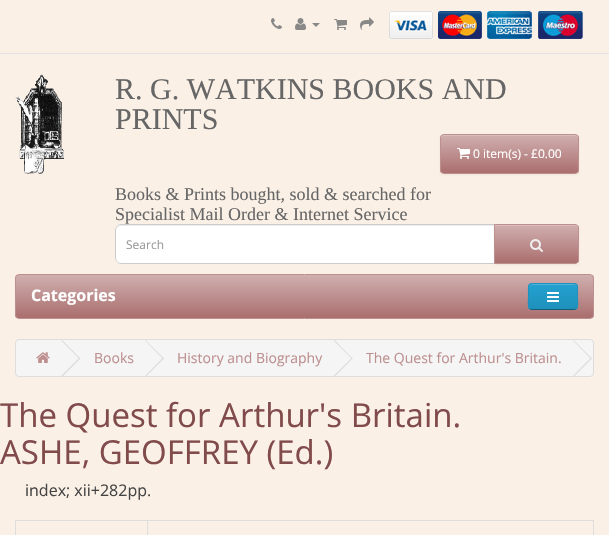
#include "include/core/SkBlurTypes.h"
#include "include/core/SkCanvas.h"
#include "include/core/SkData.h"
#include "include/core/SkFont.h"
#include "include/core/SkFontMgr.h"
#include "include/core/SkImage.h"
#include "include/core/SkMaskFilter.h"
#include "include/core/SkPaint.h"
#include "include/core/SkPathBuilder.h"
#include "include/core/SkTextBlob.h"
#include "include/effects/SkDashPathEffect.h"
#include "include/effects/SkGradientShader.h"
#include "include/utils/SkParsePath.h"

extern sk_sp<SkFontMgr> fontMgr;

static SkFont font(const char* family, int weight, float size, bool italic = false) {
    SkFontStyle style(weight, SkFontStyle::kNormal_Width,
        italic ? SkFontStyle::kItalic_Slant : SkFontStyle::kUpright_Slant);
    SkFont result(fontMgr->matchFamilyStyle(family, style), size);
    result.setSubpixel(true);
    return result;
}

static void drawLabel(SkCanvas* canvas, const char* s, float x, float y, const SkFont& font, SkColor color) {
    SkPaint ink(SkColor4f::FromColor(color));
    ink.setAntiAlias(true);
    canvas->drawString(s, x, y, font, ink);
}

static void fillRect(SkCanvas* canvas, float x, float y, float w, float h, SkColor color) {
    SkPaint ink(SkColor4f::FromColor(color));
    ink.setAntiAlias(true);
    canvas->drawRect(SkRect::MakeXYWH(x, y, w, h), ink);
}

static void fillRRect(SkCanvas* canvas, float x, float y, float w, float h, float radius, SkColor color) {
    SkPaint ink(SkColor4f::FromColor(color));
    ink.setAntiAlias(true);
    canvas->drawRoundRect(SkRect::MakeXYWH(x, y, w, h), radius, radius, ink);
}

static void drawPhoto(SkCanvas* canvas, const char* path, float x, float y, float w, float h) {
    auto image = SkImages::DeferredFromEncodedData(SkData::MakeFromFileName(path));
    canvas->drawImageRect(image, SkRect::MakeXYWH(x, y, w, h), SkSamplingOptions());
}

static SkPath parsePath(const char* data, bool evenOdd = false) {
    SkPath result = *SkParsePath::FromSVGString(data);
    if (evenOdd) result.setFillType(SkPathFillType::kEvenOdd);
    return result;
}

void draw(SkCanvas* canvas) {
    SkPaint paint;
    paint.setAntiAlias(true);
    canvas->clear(0xFFFAF0E6);
    fillRect(canvas, 0, 53, 609, 1, 0xFFE2E2E2);
    drawPhoto(canvas, "assets/img1.png", 271, 18, 11, 11);
    drawPhoto(canvas, "assets/img2.png", 295, 18, 11, 12);
    paint.setColor(0xFF888888);
    canvas->drawPath(parsePath("M312 23H320L316 27Z"), paint);
    drawPhoto(canvas, "assets/img3.png", 334, 19, 13, 11);
    drawPhoto(canvas, "assets/img4.png", 360, 17, 14, 13);
    drawPhoto(canvas, "assets/img5.png", 389, 11, 194, 28);
    drawPhoto(canvas, "assets/img6.png", 15, 74, 49, 100);
    SkFont font1 = font("Liberation Serif", 400, 30);
    drawLabel(canvas, "R. G. WATKINS BOOKS AND", 115, 99, font1, 0xFF666666);
    drawLabel(canvas, "PRINTS", 115, 129, font1, 0xFF666666);
    paint.setColor(0x0D000000);
    paint.setMaskFilter(SkMaskFilter::MakeBlur(kNormal_SkBlurStyle, 1));
    canvas->drawRoundRect(SkRect::MakeXYWH(440, 135, 139, 40), 4, 4, paint);
    paint.setMaskFilter(nullptr);
    canvas->save();
    canvas->clipPath(parsePath("M444 134H575C577 134 579 136 579 138V170C579 172 577 174 575 174H444C442 174 440 172 440 170V138C440 136 442 134 444 134Z"), true);
    {
        const SkColor colors[] = {0xFFD0AFAF, 0xFFAA6E6E};
        const float stops[] = {0, 1};
        const SkPoint ends[] = {{510, 135}, {510, 173}};
        paint.setShader(SkGradientShader::MakeLinear(ends, colors, stops, 2, SkTileMode::kClamp));
        paint.setAlpha(255);
    }
    canvas->drawRect(SkRect::MakeXYWH(440, 135, 139, 38), paint);
    canvas->restore();
    paint.setShader(nullptr);
    paint.setColor(0xFFD9BEBE);
    canvas->drawPath(parsePath("M444 136H575C577 136 578 137 578 139C578 137 578 135 576 135H443C441 135 441 137 441 139C441 137 442 136 444 136Z"), paint);
    paint.setStroke(true);
    paint.setStrokeWidth(1);
    paint.setColor(0xFFBD8F8F);
    canvas->drawRoundRect(SkRect::MakeXYWH(440.5f, 134.5f, 138, 39), 3.5f, 3.5f, paint);
    drawPhoto(canvas, "assets/img7.png", 457, 148, 13, 11);
    SkFont font2 = font("Open Sans", 400, 12);
    drawLabel(canvas, "0 item(s) - £0.00", 473, 158, font2, 0xFFFFFFFF);
    SkFont font3 = font("Liberation Serif", 400, 18);
    drawLabel(canvas, "Books & Prints bought, sold & searched for", 115, 200, font3, 0xFF666666);
    drawLabel(canvas, "Specialist Mail Order & Internet Service", 115, 220, font3, 0xFF666666);
    paint.setStroke(false);
    paint.setColor(0xFFFFFFFF);
    canvas->drawPath(parsePath("M121 224H495V264H121C117.5 264 115 261.5 115 258V230C115 226.5 117.5 224 121 224Z"), paint);
    paint.setColor(0xFFECECEC);
    canvas->drawPath(parsePath("M121 226H494V225H121C118 225 116 228 116 231C116 228 118 226 121 226Z"), paint);
    paint.setStroke(true);
    paint.setColor(0xFFCCCCCC);
    canvas->drawPath(parsePath("M121 224.5H494.5V263.5H121C118 263.5 115.5 261 115.5 258V230C115.5 227 118 224.5 121 224.5Z"), paint);
    drawLabel(canvas, "Search", 126, 249, font2, 0xFF999999);
    paint.setStroke(false);
    paint.setColor(0x0D000000);
    paint.setMaskFilter(SkMaskFilter::MakeBlur(kNormal_SkBlurStyle, 1));
    canvas->drawRoundRect(SkRect::MakeXYWH(494, 225, 85, 40), 4, 4, paint);
    paint.setMaskFilter(nullptr);
    canvas->save();
    canvas->clipPath(parsePath("M494 224H575C577 224 579 226 579 228V260C579 262 577 264 575 264H494Z"), true);
    {
        const SkColor colors[] = {0xFFD0AFAF, 0xFFAA6E6E};
        const float stops[] = {0, 1};
        const SkPoint ends[] = {{537, 225}, {537, 263}};
        paint.setShader(SkGradientShader::MakeLinear(ends, colors, stops, 2, SkTileMode::kClamp));
        paint.setAlpha(255);
    }
    canvas->drawRect(SkRect::MakeXYWH(495, 225, 84, 38), paint);
    canvas->restore();
    paint.setShader(nullptr);
    paint.setColor(0xFFD9BEBE);
    canvas->drawPath(parsePath("M495 226H575C577 226 578 227 578 229V228C578 226 577 225 575 225H495Z"), paint);
    paint.setStroke(true);
    paint.setColor(0xFFBD8F8F);
    canvas->drawPath(parsePath("M494.5 224.5H575C577 224.5 578.5 226 578.5 228V260C578.5 262 577 263.5 575 263.5H494.5Z"), paint);
    drawPhoto(canvas, "assets/img8.png", 530, 239, 13, 13);
    canvas->save();
    canvas->clipPath(parsePath("M19 274H590C592 274 594 276 594 278V315C594 317 592 319 590 319H19C17 319 15 317 15 315V278C15 276 17 274 19 274Z"), true);
    paint.setStroke(false);
    {
        const SkColor colors[] = {0xFFD0AFAF, 0xFFAA6E6E};
        const float stops[] = {0, 1};
        const SkPoint ends[] = {{305, 275}, {305, 318}};
        paint.setShader(SkGradientShader::MakeLinear(ends, colors, stops, 2, SkTileMode::kClamp));
        paint.setAlpha(255);
    }
    canvas->drawRect(SkRect::MakeXYWH(15, 275, 579, 43), paint);
    canvas->restore();
    paint.setStroke(true);
    paint.setShader(nullptr);
    paint.setColor(0xFFBD8F8F);
    canvas->drawRoundRect(SkRect::MakeXYWH(15.5f, 274.5f, 578, 44), 3.5f, 3.5f, paint);
    SkFont font4 = font("Open Sans", 700, 16);
    drawLabel(canvas, "Categories", 31, 301, font4, 0xFFFFFFFF);
    fillRRect(canvas, 528, 283, 50, 27, 4, 0xFF229AC8);
    canvas->save();
    canvas->clipPath(parsePath("M532 283H574C576 283 578 285 578 287V306C578 308 576 310 574 310H532C530 310 528 308 528 306V287C528 285 530 283 532 283Z"), true);
    paint.setStroke(false);
    {
        const SkColor colors[] = {0xFF23A1D1, 0xFF1F90BB};
        const float stops[] = {0, 1};
        const SkPoint ends[] = {{553, 284}, {553, 309}};
        paint.setShader(SkGradientShader::MakeLinear(ends, colors, stops, 2, SkTileMode::kClamp));
        paint.setAlpha(255);
    }
    canvas->drawRect(SkRect::MakeXYWH(528, 284, 50, 25), paint);
    canvas->restore();
    paint.setShader(nullptr);
    paint.setColor(0xFF4FB4DA);
    canvas->drawPath(parsePath("M532 285H574C576 285 577 286 577 288C577 282 571 284 567 284H539C535 284 529 282 529 288C529 286 530 285 532 285Z"), paint);
    paint.setStroke(true);
    paint.setColor(0xFF145E7A);
    canvas->drawPath(parsePath("M576.5 308.5C576 309 575 309.5 574 309.5H532C531 309.5 530 309 529.5 308.5"), paint);
    paint.setColor(0xFF1F90BB);
    canvas->drawPath(parsePath("M529.5 308.5C527.5 306.5 528.5 299 528.5 296.5C528.5 283.5 526.5 283.5 539 283.5H567C579.5 283.5 577.5 283.5 577.5 296.5C577.5 299 578.5 306.5 576.5 308.5"), paint);
    drawPhoto(canvas, "assets/img9.png", 547, 292, 12, 10);
    paint.setStroke(false);
    paint.setColor(0xFFF5F5F5);
    canvas->drawRoundRect(SkRect::MakeXYWH(15.5f, 339.5f, 578, 37), 3.5f, 3.5f, paint);
    paint.setStroke(true);
    paint.setColor(0xFFDDDDDD);
    canvas->drawRoundRect(SkRect::MakeXYWH(15.5f, 339.5f, 578, 37), 3.5f, 3.5f, paint);
    drawPhoto(canvas, "assets/img10.png", 36, 352, 14, 11);
    paint.setStroke(false);
    canvas->drawPath(parsePath("M61 340.5L62 340L80.5 358.5L79.5 359Z"), paint);
    canvas->drawPath(parsePath("M61 376L79.5 357.5L80.5 358.5L62 377Z"), paint);
    SkFont font5 = font("Open Sans", 400, 14);
    drawLabel(canvas, "Books", 94, 363, font5, 0xFFBD8F8F);
    canvas->drawPath(parsePath("M145 340.5L145.5 340L164 358.5L163 359Z"), paint);
    canvas->drawPath(parsePath("M145 376L163 357.5L164 358.5L145.5 377Z"), paint);
    drawLabel(canvas, "History and Biography", 177, 363, font5, 0xFFBD8F8F);
    canvas->drawPath(parsePath("M333.5 340.5L334.5 340L352.5 358.5L352 359Z"), paint);
    canvas->drawPath(parsePath("M333.5 376L352 357.5L352.5 358.5L334.5 377Z"), paint);
    drawLabel(canvas, "The Quest for Arthur's Britain.", 366, 363, font5, 0xFFBD8F8F);
    canvas->drawPath(parsePath("M573 340.5L573.5 340L592 358.5L591 359Z"), paint);
    canvas->drawPath(parsePath("M573 376L591 357.5L592 358.5L573.5 377Z"), paint);
    SkFont font6 = font("Open Sans", 400, 33);
    drawLabel(canvas, "The Quest for Arthur's Britain.", 0, 427, font6, 0xFF814B4B);
    drawLabel(canvas, "ASHE, GEOFFREY (Ed.)", 0, 464, font6, 0xFF814B4B);
    SkFont font7 = font("Open Sans", 400, 16);
    drawLabel(canvas, "index; xii+282pp.", 25, 496, font7, 0xFF444444);
    fillRect(canvas, 15, 520, 579, 1, 0xFFDDDDDD);
    fillRect(canvas, 593, 520, 1, 15, 0xFFDDDDDD);
    fillRect(canvas, 15, 520, 1, 15, 0xFFDDDDDD);
    fillRect(canvas, 147, 520, 1, 15, 0xFFDDDDDD);
}
